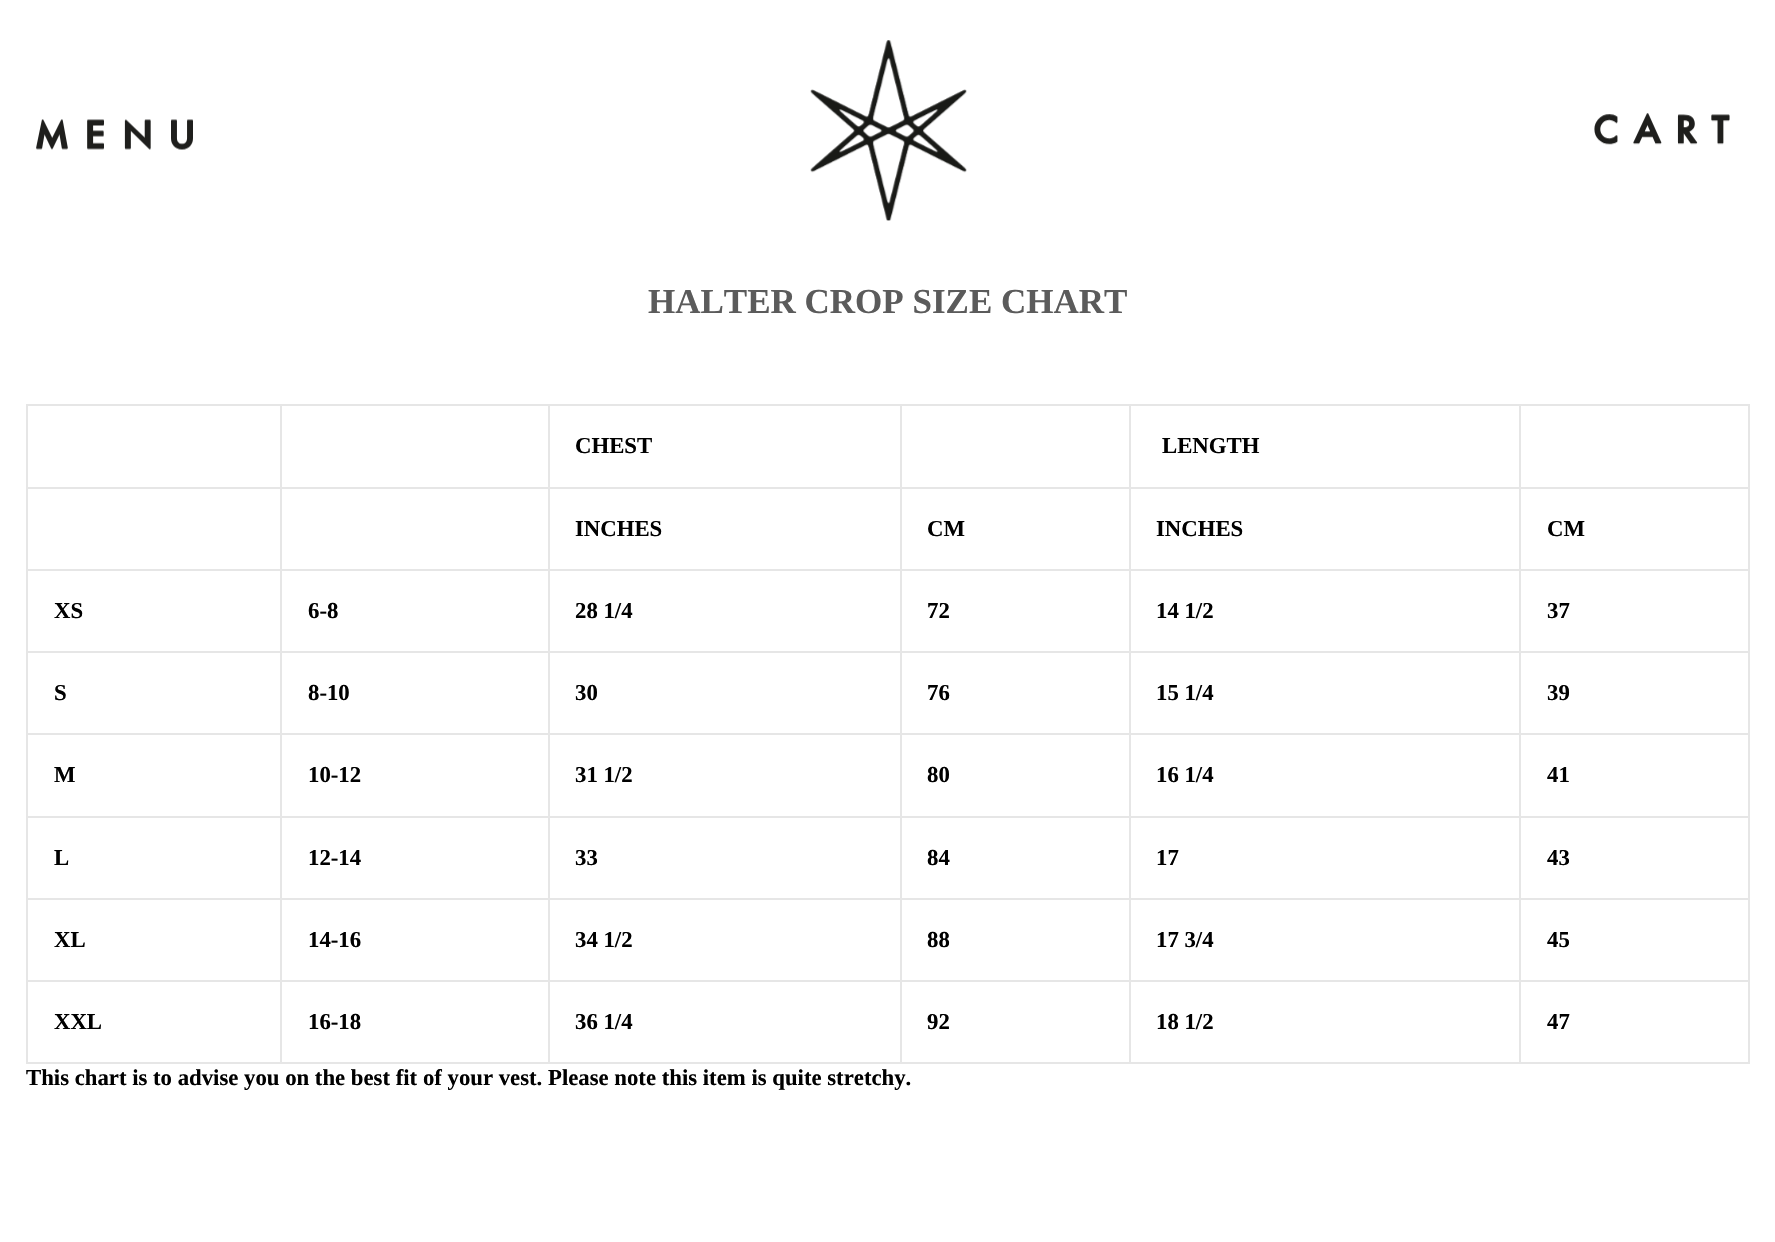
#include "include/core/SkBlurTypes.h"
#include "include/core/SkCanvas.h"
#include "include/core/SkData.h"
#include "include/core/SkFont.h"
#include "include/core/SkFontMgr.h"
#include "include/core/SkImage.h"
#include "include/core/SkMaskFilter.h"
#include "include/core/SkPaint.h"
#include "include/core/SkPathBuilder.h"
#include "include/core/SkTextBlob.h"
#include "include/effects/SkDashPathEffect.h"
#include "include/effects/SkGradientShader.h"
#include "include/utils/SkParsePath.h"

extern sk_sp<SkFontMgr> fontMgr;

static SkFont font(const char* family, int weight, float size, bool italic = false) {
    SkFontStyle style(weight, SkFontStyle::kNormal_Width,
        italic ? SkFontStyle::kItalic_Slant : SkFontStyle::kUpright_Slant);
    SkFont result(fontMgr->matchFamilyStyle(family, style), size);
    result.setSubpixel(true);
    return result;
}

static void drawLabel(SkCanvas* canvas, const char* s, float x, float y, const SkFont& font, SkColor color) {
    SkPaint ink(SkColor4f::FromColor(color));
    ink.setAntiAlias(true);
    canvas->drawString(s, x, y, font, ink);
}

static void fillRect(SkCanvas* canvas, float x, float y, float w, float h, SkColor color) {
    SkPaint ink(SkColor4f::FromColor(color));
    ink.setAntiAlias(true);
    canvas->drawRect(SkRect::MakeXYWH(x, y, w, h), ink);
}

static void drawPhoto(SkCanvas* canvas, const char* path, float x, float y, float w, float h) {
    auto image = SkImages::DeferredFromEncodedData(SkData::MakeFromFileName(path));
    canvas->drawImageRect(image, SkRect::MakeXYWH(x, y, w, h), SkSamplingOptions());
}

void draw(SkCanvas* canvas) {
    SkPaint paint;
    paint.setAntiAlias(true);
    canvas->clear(0xFFFFFFFF);
    drawPhoto(canvas, "assets/img1.png", 36, 119, 157, 31);
    drawPhoto(canvas, "assets/img2.png", 810, 40, 157, 181);
    drawPhoto(canvas, "assets/img3.png", 1594, 113, 136, 32);
    SkFont font1 = font("Liberation Serif", 700, 35);
    drawLabel(canvas, "HALTER CROP SIZE CHART", 648, 313, font1, 0xFF5B5B5B);
    fillRect(canvas, 1519, 404, 231, 2, 0xFFE6E6E6);
    fillRect(canvas, 1519, 487, 231, 2, 0xFFE6E6E6);
    fillRect(canvas, 1519, 569, 231, 2, 0xFFE6E6E6);
    fillRect(canvas, 1519, 651, 231, 2, 0xFFE6E6E6);
    fillRect(canvas, 1519, 733, 231, 2, 0xFFE6E6E6);
    fillRect(canvas, 1519, 816, 231, 2, 0xFFE6E6E6);
    fillRect(canvas, 1519, 898, 231, 2, 0xFFE6E6E6);
    fillRect(canvas, 1519, 980, 231, 2, 0xFFE6E6E6);
    fillRect(canvas, 1748, 980, 2, 84, 0xFFE6E6E6);
    fillRect(canvas, 1519, 1062, 231, 2, 0xFFE6E6E6);
    fillRect(canvas, 1519, 980, 2, 84, 0xFFE6E6E6);
    fillRect(canvas, 1129, 980, 392, 2, 0xFFE6E6E6);
    fillRect(canvas, 1519, 898, 2, 84, 0xFFE6E6E6);
    fillRect(canvas, 1129, 898, 392, 2, 0xFFE6E6E6);
    fillRect(canvas, 1519, 816, 2, 84, 0xFFE6E6E6);
    fillRect(canvas, 1129, 816, 392, 2, 0xFFE6E6E6);
    fillRect(canvas, 1519, 733, 2, 84, 0xFFE6E6E6);
    fillRect(canvas, 1129, 733, 392, 2, 0xFFE6E6E6);
    fillRect(canvas, 1519, 651, 2, 84, 0xFFE6E6E6);
    fillRect(canvas, 1129, 651, 392, 2, 0xFFE6E6E6);
    fillRect(canvas, 1519, 569, 2, 84, 0xFFE6E6E6);
    fillRect(canvas, 1129, 569, 392, 2, 0xFFE6E6E6);
    fillRect(canvas, 1519, 487, 2, 84, 0xFFE6E6E6);
    fillRect(canvas, 1129, 487, 392, 2, 0xFFE6E6E6);
    fillRect(canvas, 1519, 404, 2, 84, 0xFFE6E6E6);
    fillRect(canvas, 1129, 404, 392, 2, 0xFFE6E6E6);
    fillRect(canvas, 1129, 1062, 392, 2, 0xFFE6E6E6);
    fillRect(canvas, 1129, 980, 2, 84, 0xFFE6E6E6);
    fillRect(canvas, 900, 980, 231, 2, 0xFFE6E6E6);
    fillRect(canvas, 1129, 898, 2, 84, 0xFFE6E6E6);
    fillRect(canvas, 900, 898, 231, 2, 0xFFE6E6E6);
    fillRect(canvas, 1129, 816, 2, 84, 0xFFE6E6E6);
    fillRect(canvas, 900, 816, 231, 2, 0xFFE6E6E6);
    fillRect(canvas, 1129, 733, 2, 84, 0xFFE6E6E6);
    fillRect(canvas, 900, 733, 231, 2, 0xFFE6E6E6);
    fillRect(canvas, 1129, 651, 2, 84, 0xFFE6E6E6);
    fillRect(canvas, 900, 651, 231, 2, 0xFFE6E6E6);
    fillRect(canvas, 1129, 569, 2, 84, 0xFFE6E6E6);
    fillRect(canvas, 900, 569, 231, 2, 0xFFE6E6E6);
    fillRect(canvas, 1129, 487, 2, 84, 0xFFE6E6E6);
    fillRect(canvas, 900, 487, 231, 2, 0xFFE6E6E6);
    fillRect(canvas, 1129, 404, 2, 84, 0xFFE6E6E6);
    fillRect(canvas, 900, 404, 231, 2, 0xFFE6E6E6);
    fillRect(canvas, 900, 1062, 231, 2, 0xFFE6E6E6);
    fillRect(canvas, 900, 980, 2, 84, 0xFFE6E6E6);
    fillRect(canvas, 548, 980, 353, 2, 0xFFE6E6E6);
    fillRect(canvas, 900, 898, 2, 84, 0xFFE6E6E6);
    fillRect(canvas, 548, 898, 353, 2, 0xFFE6E6E6);
    fillRect(canvas, 900, 816, 2, 84, 0xFFE6E6E6);
    fillRect(canvas, 548, 816, 353, 2, 0xFFE6E6E6);
    fillRect(canvas, 900, 733, 2, 84, 0xFFE6E6E6);
    fillRect(canvas, 548, 733, 353, 2, 0xFFE6E6E6);
    fillRect(canvas, 900, 651, 2, 84, 0xFFE6E6E6);
    fillRect(canvas, 548, 651, 353, 2, 0xFFE6E6E6);
    fillRect(canvas, 900, 569, 2, 84, 0xFFE6E6E6);
    fillRect(canvas, 548, 569, 353, 2, 0xFFE6E6E6);
    fillRect(canvas, 900, 487, 2, 84, 0xFFE6E6E6);
    fillRect(canvas, 548, 487, 353, 2, 0xFFE6E6E6);
    fillRect(canvas, 900, 404, 2, 84, 0xFFE6E6E6);
    fillRect(canvas, 548, 404, 353, 2, 0xFFE6E6E6);
    fillRect(canvas, 548, 1062, 353, 2, 0xFFE6E6E6);
    fillRect(canvas, 548, 980, 2, 84, 0xFFE6E6E6);
    fillRect(canvas, 280, 980, 270, 2, 0xFFE6E6E6);
    fillRect(canvas, 548, 898, 2, 84, 0xFFE6E6E6);
    fillRect(canvas, 280, 898, 270, 2, 0xFFE6E6E6);
    fillRect(canvas, 548, 816, 2, 84, 0xFFE6E6E6);
    fillRect(canvas, 280, 816, 270, 2, 0xFFE6E6E6);
    fillRect(canvas, 548, 733, 2, 84, 0xFFE6E6E6);
    fillRect(canvas, 280, 733, 270, 2, 0xFFE6E6E6);
    fillRect(canvas, 548, 651, 2, 84, 0xFFE6E6E6);
    fillRect(canvas, 280, 651, 270, 2, 0xFFE6E6E6);
    fillRect(canvas, 548, 569, 2, 84, 0xFFE6E6E6);
    fillRect(canvas, 280, 569, 270, 2, 0xFFE6E6E6);
    fillRect(canvas, 548, 487, 2, 84, 0xFFE6E6E6);
    fillRect(canvas, 280, 487, 270, 2, 0xFFE6E6E6);
    fillRect(canvas, 548, 404, 2, 84, 0xFFE6E6E6);
    fillRect(canvas, 280, 404, 270, 2, 0xFFE6E6E6);
    fillRect(canvas, 280, 1062, 270, 2, 0xFFE6E6E6);
    fillRect(canvas, 280, 980, 2, 84, 0xFFE6E6E6);
    fillRect(canvas, 26, 980, 256, 2, 0xFFE6E6E6);
    fillRect(canvas, 280, 898, 2, 84, 0xFFE6E6E6);
    fillRect(canvas, 26, 898, 256, 2, 0xFFE6E6E6);
    fillRect(canvas, 280, 816, 2, 84, 0xFFE6E6E6);
    fillRect(canvas, 26, 816, 256, 2, 0xFFE6E6E6);
    fillRect(canvas, 280, 733, 2, 84, 0xFFE6E6E6);
    fillRect(canvas, 26, 733, 256, 2, 0xFFE6E6E6);
    fillRect(canvas, 280, 651, 2, 84, 0xFFE6E6E6);
    fillRect(canvas, 26, 651, 256, 2, 0xFFE6E6E6);
    fillRect(canvas, 280, 569, 2, 84, 0xFFE6E6E6);
    fillRect(canvas, 26, 569, 256, 2, 0xFFE6E6E6);
    fillRect(canvas, 280, 487, 2, 84, 0xFFE6E6E6);
    fillRect(canvas, 26, 487, 256, 2, 0xFFE6E6E6);
    fillRect(canvas, 280, 404, 2, 84, 0xFFE6E6E6);
    fillRect(canvas, 26, 404, 256, 2, 0xFFE6E6E6);
    fillRect(canvas, 26, 1062, 256, 2, 0xFFE6E6E6);
    fillRect(canvas, 26, 980, 2, 84, 0xFFE6E6E6);
    fillRect(canvas, 26, 898, 2, 84, 0xFFE6E6E6);
    fillRect(canvas, 26, 816, 2, 84, 0xFFE6E6E6);
    fillRect(canvas, 26, 733, 2, 84, 0xFFE6E6E6);
    fillRect(canvas, 26, 651, 2, 84, 0xFFE6E6E6);
    fillRect(canvas, 26, 569, 2, 84, 0xFFE6E6E6);
    fillRect(canvas, 26, 487, 2, 84, 0xFFE6E6E6);
    fillRect(canvas, 26, 404, 2, 84, 0xFFE6E6E6);
    SkFont font2 = font("Liberation Serif", 700, 22.75f);
    drawLabel(canvas, "CHEST", 575, 453, font2, 0xFF000000);
    drawLabel(canvas, "LENGTH", 1162, 453, font2, 0xFF000000);
    fillRect(canvas, 1748, 898, 2, 84, 0xFFE6E6E6);
    fillRect(canvas, 1748, 816, 2, 84, 0xFFE6E6E6);
    fillRect(canvas, 1748, 733, 2, 84, 0xFFE6E6E6);
    fillRect(canvas, 1748, 651, 2, 84, 0xFFE6E6E6);
    fillRect(canvas, 1748, 569, 2, 84, 0xFFE6E6E6);
    fillRect(canvas, 1748, 487, 2, 84, 0xFFE6E6E6);
    fillRect(canvas, 1748, 404, 2, 84, 0xFFE6E6E6);
    drawLabel(canvas, "INCHES", 575, 536, font2, 0xFF000000);
    drawLabel(canvas, "CM", 927, 536, font2, 0xFF000000);
    drawLabel(canvas, "INCHES", 1156, 536, font2, 0xFF000000);
    drawLabel(canvas, "CM", 1547, 536, font2, 0xFF000000);
    drawLabel(canvas, "XS", 54, 618, font2, 0xFF000000);
    drawLabel(canvas, "6-8", 308, 618, font2, 0xFF000000);
    drawLabel(canvas, "28 1/4", 575, 618, font2, 0xFF000000);
    drawLabel(canvas, "72", 927, 618, font2, 0xFF000000);
    drawLabel(canvas, "14 1/2", 1156, 618, font2, 0xFF000000);
    drawLabel(canvas, "37", 1547, 618, font2, 0xFF000000);
    drawLabel(canvas, "S", 54, 700, font2, 0xFF000000);
    drawLabel(canvas, "8-10", 308, 700, font2, 0xFF000000);
    drawLabel(canvas, "30", 575, 700, font2, 0xFF000000);
    drawLabel(canvas, "76", 927, 700, font2, 0xFF000000);
    drawLabel(canvas, "15 1/4", 1156, 700, font2, 0xFF000000);
    drawLabel(canvas, "39", 1547, 700, font2, 0xFF000000);
    drawLabel(canvas, "M", 54, 782, font2, 0xFF000000);
    drawLabel(canvas, "10-12", 308, 782, font2, 0xFF000000);
    drawLabel(canvas, "31 1/2", 575, 782, font2, 0xFF000000);
    drawLabel(canvas, "80", 927, 782, font2, 0xFF000000);
    drawLabel(canvas, "16 1/4", 1156, 782, font2, 0xFF000000);
    drawLabel(canvas, "41", 1547, 782, font2, 0xFF000000);
    drawLabel(canvas, "L", 54, 865, font2, 0xFF000000);
    drawLabel(canvas, "12-14", 308, 865, font2, 0xFF000000);
    drawLabel(canvas, "33", 575, 865, font2, 0xFF000000);
    drawLabel(canvas, "84", 927, 865, font2, 0xFF000000);
    drawLabel(canvas, "17", 1156, 865, font2, 0xFF000000);
    drawLabel(canvas, "43", 1547, 865, font2, 0xFF000000);
    drawLabel(canvas, "XL", 54, 947, font2, 0xFF000000);
    drawLabel(canvas, "14-16", 308, 947, font2, 0xFF000000);
    drawLabel(canvas, "34 1/2", 575, 947, font2, 0xFF000000);
    drawLabel(canvas, "88", 927, 947, font2, 0xFF000000);
    drawLabel(canvas, "17 3/4", 1156, 947, font2, 0xFF000000);
    drawLabel(canvas, "45", 1547, 947, font2, 0xFF000000);
    drawLabel(canvas, "XXL", 54, 1029, font2, 0xFF000000);
    drawLabel(canvas, "16-18", 308, 1029, font2, 0xFF000000);
    drawLabel(canvas, "36 1/4", 575, 1029, font2, 0xFF000000);
    drawLabel(canvas, "92", 927, 1029, font2, 0xFF000000);
    drawLabel(canvas, "18 1/2", 1156, 1029, font2, 0xFF000000);
    drawLabel(canvas, "47", 1547, 1029, font2, 0xFF000000);
    drawLabel(canvas, "This chart is to advise you on the best fit of your vest. Please note this item is quite stretchy.", 26, 1085, font2, 0xFF000000);
}
